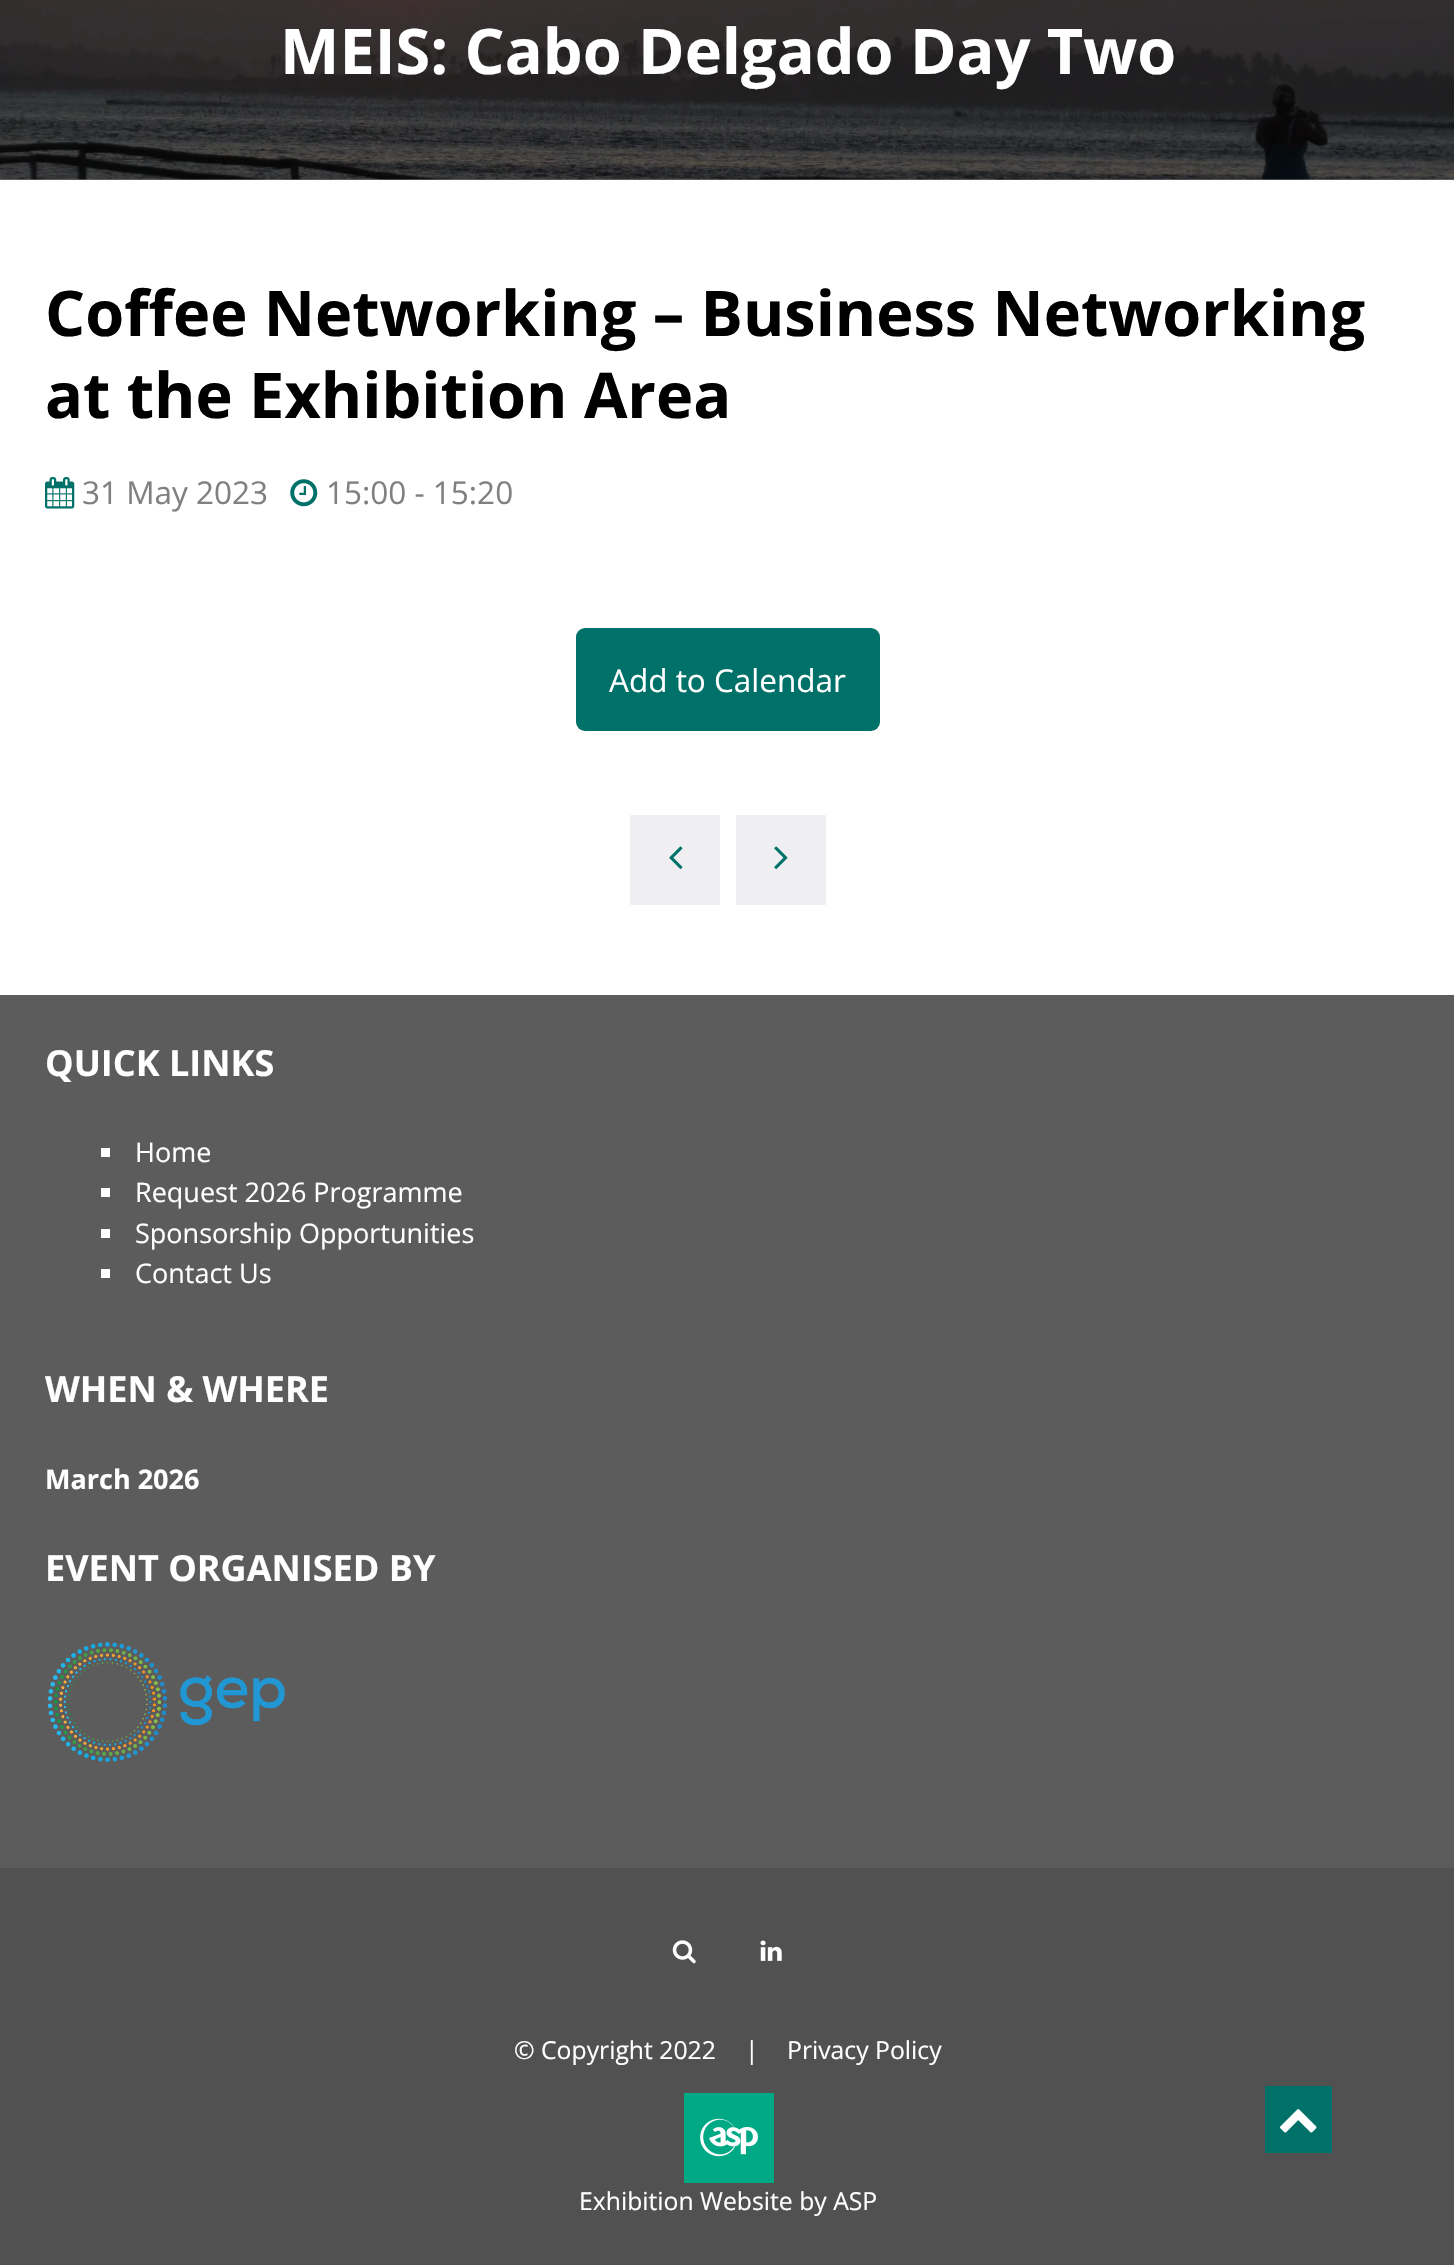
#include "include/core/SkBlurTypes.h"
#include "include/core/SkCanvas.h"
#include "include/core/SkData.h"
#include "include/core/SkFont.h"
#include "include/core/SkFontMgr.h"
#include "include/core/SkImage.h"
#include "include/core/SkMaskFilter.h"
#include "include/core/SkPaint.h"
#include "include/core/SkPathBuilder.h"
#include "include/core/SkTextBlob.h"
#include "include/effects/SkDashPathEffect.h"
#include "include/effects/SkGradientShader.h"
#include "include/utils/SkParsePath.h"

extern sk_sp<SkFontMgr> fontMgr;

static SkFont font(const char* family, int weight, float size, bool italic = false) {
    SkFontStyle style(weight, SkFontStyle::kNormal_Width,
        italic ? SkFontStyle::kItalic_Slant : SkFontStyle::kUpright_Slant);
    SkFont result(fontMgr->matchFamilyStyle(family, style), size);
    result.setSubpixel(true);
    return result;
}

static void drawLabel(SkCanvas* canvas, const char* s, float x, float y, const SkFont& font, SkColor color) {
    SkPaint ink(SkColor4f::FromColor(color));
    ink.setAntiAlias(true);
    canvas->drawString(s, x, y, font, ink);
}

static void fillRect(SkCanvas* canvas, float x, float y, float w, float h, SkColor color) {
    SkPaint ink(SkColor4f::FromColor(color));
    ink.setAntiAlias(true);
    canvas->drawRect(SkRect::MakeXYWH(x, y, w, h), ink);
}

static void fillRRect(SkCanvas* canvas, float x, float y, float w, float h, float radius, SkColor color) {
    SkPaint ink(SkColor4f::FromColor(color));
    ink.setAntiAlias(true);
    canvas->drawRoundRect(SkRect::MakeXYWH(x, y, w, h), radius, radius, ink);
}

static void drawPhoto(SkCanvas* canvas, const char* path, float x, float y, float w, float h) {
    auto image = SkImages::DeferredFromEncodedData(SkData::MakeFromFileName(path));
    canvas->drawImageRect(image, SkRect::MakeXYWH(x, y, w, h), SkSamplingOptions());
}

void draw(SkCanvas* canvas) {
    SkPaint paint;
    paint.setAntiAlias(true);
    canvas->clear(0xFFFFFFFF);
    fillRect(canvas, 0, 179, 1454, 1, 0xFF808080);
    drawPhoto(canvas, "assets/img1.png", 0, 0, 1454, 180);
    SkFont font1 = font("Open Sans", 700, 63);
    drawLabel(canvas, "MEIS: Cabo Delgado Day Two", 280, 74, font1, 0xFFFFFFFF);
    drawLabel(canvas, "Coffee Networking – Business Networking", 45, 336, font1, 0xFF000000);
    drawLabel(canvas, "at the Exhibition Area", 45, 418, font1, 0xFF000000);
    drawPhoto(canvas, "assets/img2.png", 45, 477, 30, 32);
    SkFont font2 = font("Open Sans", 400, 31.5f);
    drawLabel(canvas, "31 May 2023", 82, 504, font2, 0xFF808080);
    drawPhoto(canvas, "assets/img3.png", 290, 479, 28, 28);
    drawLabel(canvas, "15:00 - 15:20", 326, 504, font2, 0xFF808080);
    fillRRect(canvas, 576, 628, 304, 103, 9, 0xFF007169);
    drawLabel(canvas, "Add to Calendar", 609, 692, font2, 0xFFFFFFFF);
    fillRect(canvas, 630, 815, 90, 90, 0xFFEFEFF2);
    drawPhoto(canvas, "assets/img4.png", 669, 846, 14, 23);
    fillRect(canvas, 736, 815, 90, 90, 0xFFEFEFF2);
    drawPhoto(canvas, "assets/img5.png", 774, 846, 14, 23);
    fillRect(canvas, 0, 995, 1454, 873, 0xFF5C5C5C);
    SkFont font3 = font("Open Sans", 700, 36);
    drawLabel(canvas, "QUICK LINKS", 45, 1076, font3, 0xFFFFFFFF);
    fillRect(canvas, 101, 1148, 9, 9, 0xFFFFFFFF);
    SkFont font4 = font("Open Sans", 400, 27);
    drawLabel(canvas, "Home", 135, 1162, font4, 0xFFFFFFFF);
    fillRect(canvas, 101, 1188, 9, 9, 0xFFFFFFFF);
    drawLabel(canvas, "Request 2026 Programme", 135, 1202, font4, 0xFFFFFFFF);
    fillRect(canvas, 101, 1229, 9, 9, 0xFFFFFFFF);
    drawLabel(canvas, "Sponsorship Opportunities", 135, 1243, font4, 0xFFFFFFFF);
    fillRect(canvas, 101, 1269, 9, 9, 0xFFFFFFFF);
    drawLabel(canvas, "Contact Us", 135, 1283, font4, 0xFFFFFFFF);
    drawLabel(canvas, "WHEN & WHERE", 45, 1402, font3, 0xFFFFFFFF);
    SkFont font5 = font("Open Sans", 700, 27);
    drawLabel(canvas, "March 2026", 45, 1489, font5, 0xFFFFFFFF);
    drawLabel(canvas, "EVENT ORGANISED BY", 45, 1581, font3, 0xFFFFFFFF);
    drawPhoto(canvas, "assets/img6.png", 47, 1642, 238, 120);
    fillRect(canvas, 0, 1868, 1454, 397, 0xFF525151);
    drawPhoto(canvas, "assets/img7.png", 672, 1940, 24, 24);
    drawPhoto(canvas, "assets/img8.png", 760, 1940, 22, 21);
    SkFont font6 = font("Open Sans", 400, 24.75f);
    drawLabel(canvas, "© Copyright 2022", 514, 2059, font6, 0xFFFFFFFF);
    drawLabel(canvas, "|", 745, 2059, font6, 0xFFFFFFFF);
    drawLabel(canvas, "Privacy Policy", 787, 2059, font6, 0xFFFFFFFF);
    drawPhoto(canvas, "assets/img9.png", 684, 2093, 90, 90);
    drawLabel(canvas, "Exhibition Website by ASP", 579, 2210, font6, 0xFFFFFFFF);
    fillRect(canvas, 1265, 2086, 67, 67, 0xFF007169);
    drawPhoto(canvas, "assets/img10.png", 1280, 2109, 37, 24);
}
